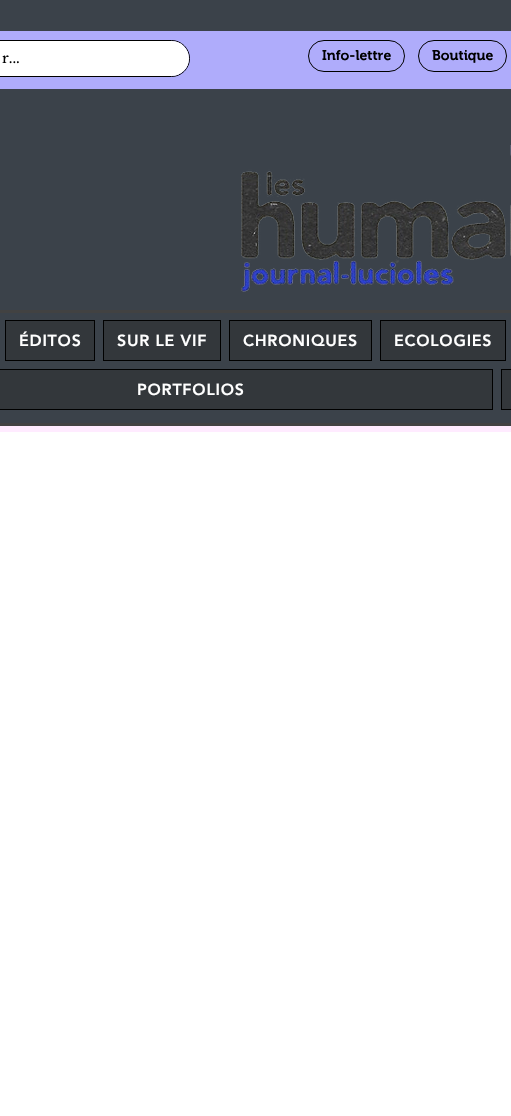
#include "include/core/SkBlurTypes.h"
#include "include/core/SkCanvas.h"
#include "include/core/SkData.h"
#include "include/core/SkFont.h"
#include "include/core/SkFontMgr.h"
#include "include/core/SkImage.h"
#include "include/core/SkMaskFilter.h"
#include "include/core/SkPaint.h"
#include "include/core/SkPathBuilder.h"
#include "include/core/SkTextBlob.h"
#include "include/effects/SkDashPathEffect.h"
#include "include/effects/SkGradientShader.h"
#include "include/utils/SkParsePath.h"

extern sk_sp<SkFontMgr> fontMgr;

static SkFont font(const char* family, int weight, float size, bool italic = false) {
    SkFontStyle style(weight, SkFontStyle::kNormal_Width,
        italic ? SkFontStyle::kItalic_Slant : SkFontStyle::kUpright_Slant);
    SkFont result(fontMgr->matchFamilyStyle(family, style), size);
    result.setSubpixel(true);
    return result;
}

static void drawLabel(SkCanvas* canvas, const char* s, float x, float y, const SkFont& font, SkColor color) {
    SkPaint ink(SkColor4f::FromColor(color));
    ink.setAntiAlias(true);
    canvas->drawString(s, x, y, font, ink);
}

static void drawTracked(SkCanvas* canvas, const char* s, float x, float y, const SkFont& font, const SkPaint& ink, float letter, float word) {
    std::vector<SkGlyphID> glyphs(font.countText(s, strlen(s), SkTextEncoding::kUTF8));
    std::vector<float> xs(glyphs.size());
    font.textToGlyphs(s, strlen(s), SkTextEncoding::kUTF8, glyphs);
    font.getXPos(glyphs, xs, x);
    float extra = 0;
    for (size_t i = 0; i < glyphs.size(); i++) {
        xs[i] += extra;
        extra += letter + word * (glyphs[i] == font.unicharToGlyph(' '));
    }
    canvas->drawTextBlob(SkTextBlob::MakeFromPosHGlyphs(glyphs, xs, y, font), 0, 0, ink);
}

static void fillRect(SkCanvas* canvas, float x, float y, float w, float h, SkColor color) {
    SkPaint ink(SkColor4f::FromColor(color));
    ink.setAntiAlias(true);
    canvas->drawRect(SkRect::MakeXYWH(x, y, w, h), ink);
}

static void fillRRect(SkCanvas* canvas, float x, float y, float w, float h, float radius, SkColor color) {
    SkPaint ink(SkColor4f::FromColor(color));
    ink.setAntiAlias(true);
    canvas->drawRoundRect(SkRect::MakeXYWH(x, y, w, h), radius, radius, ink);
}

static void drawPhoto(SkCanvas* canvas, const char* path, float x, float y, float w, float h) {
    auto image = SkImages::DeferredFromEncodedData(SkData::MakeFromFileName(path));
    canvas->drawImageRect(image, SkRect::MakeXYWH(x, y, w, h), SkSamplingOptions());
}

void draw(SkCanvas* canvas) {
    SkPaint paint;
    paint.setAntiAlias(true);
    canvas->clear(0xFF3B424A);
    fillRect(canvas, 0, 31, 511, 58, 0xFFAFACFB);
    paint.setStroke(true);
    paint.setStrokeWidth(1);
    paint.setColor(0xFF000000);
    canvas->drawRoundRect(SkRect::MakeXYWH(-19.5f, 40.5f, 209, 36), 18, 18, paint);
    fillRRect(canvas, -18, 41, 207, 35, 17.5f, 0xFFFFFFFF);
    SkFont font1 = font("Libre Baskerville", 400, 14);
    drawLabel(canvas, "r...", 2, 63, font1, 0xFF000000);
    canvas->drawRoundRect(SkRect::MakeXYWH(308.5f, 40.5f, 96, 31), 15.5f, 15.5f, paint);
    SkFont font2 = font("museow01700", 600, 14);
    drawLabel(canvas, "Info-lettre", 322, 60, font2, 0xFF000000);
    canvas->drawRoundRect(SkRect::MakeXYWH(418.5f, 40.5f, 88, 31), 15.5f, 15.5f, paint);
    drawLabel(canvas, "Boutique", 432, 60, font2, 0xFF000000);
    drawPhoto(canvas, "assets/img1.png", 240, 145, 271, 147);
    fillRect(canvas, 0, 310, 511, 3, 0xFF424242);
    paint.setStroke(false);
    paint.setColor(0xFF33373B);
    canvas->drawRect(SkRect::MakeXYWH(5.5f, 320.5f, 89, 40), paint);
    paint.setStroke(true);
    paint.setColor(0xFF000000);
    canvas->drawRect(SkRect::MakeXYWH(5.5f, 320.5f, 89, 40), paint);
    SkFont font3 = font("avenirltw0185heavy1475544", 900, 16);
    paint.setStroke(false);
    paint.setColor(0xFFFFFFFF);
    drawTracked(canvas, "ÉDITOS", 19, 346, font3, paint, 0.75f, 0);
    paint.setColor(0xFF33373B);
    canvas->drawRect(SkRect::MakeXYWH(103.5f, 320.5f, 117, 40), paint);
    paint.setStroke(true);
    paint.setColor(0xFF000000);
    canvas->drawRect(SkRect::MakeXYWH(103.5f, 320.5f, 117, 40), paint);
    paint.setStroke(false);
    paint.setColor(0xFFFFFFFF);
    drawTracked(canvas, "SUR LE VIF", 117, 346, font3, paint, 0.75f, 0);
    paint.setColor(0xFF33373B);
    canvas->drawRect(SkRect::MakeXYWH(229.5f, 320.5f, 142, 40), paint);
    paint.setStroke(true);
    paint.setColor(0xFF000000);
    canvas->drawRect(SkRect::MakeXYWH(229.5f, 320.5f, 142, 40), paint);
    paint.setStroke(false);
    paint.setColor(0xFFFFFFFF);
    drawTracked(canvas, "CHRONIQUES", 243, 346, font3, paint, 0.75f, 0);
    paint.setColor(0xFF33373B);
    canvas->drawRect(SkRect::MakeXYWH(380.5f, 320.5f, 125, 40), paint);
    paint.setStroke(true);
    paint.setColor(0xFF000000);
    canvas->drawRect(SkRect::MakeXYWH(380.5f, 320.5f, 125, 40), paint);
    paint.setStroke(false);
    paint.setColor(0xFFFFFFFF);
    drawTracked(canvas, "ECOLOGIES", 394, 346, font3, paint, 0.75f, 0);
    paint.setColor(0xFF33373B);
    canvas->drawRect(SkRect::MakeXYWH(-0.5f, 369.5f, 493, 40), paint);
    paint.setStroke(true);
    paint.setColor(0xFF000000);
    canvas->drawRect(SkRect::MakeXYWH(-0.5f, 369.5f, 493, 40), paint);
    paint.setStroke(false);
    paint.setColor(0xFFFFFFFF);
    drawTracked(canvas, "PORTFOLIOS", 137, 395, font3, paint, 0.75f, 0);
    paint.setColor(0xFF33373B);
    canvas->drawRect(SkRect::MakeXYWH(501.5f, 369.5f, 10, 40), paint);
    paint.setStroke(true);
    paint.setColor(0xFF000000);
    canvas->drawRect(SkRect::MakeXYWH(501.5f, 369.5f, 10, 40), paint);
    fillRect(canvas, 0, 423, 511, 3, 0xFF424242);
    fillRect(canvas, 0, 426, 511, 6, 0xFFFFEBFF);
    fillRect(canvas, 0, 432, 511, 684, 0xFFFFFFFF);
}
